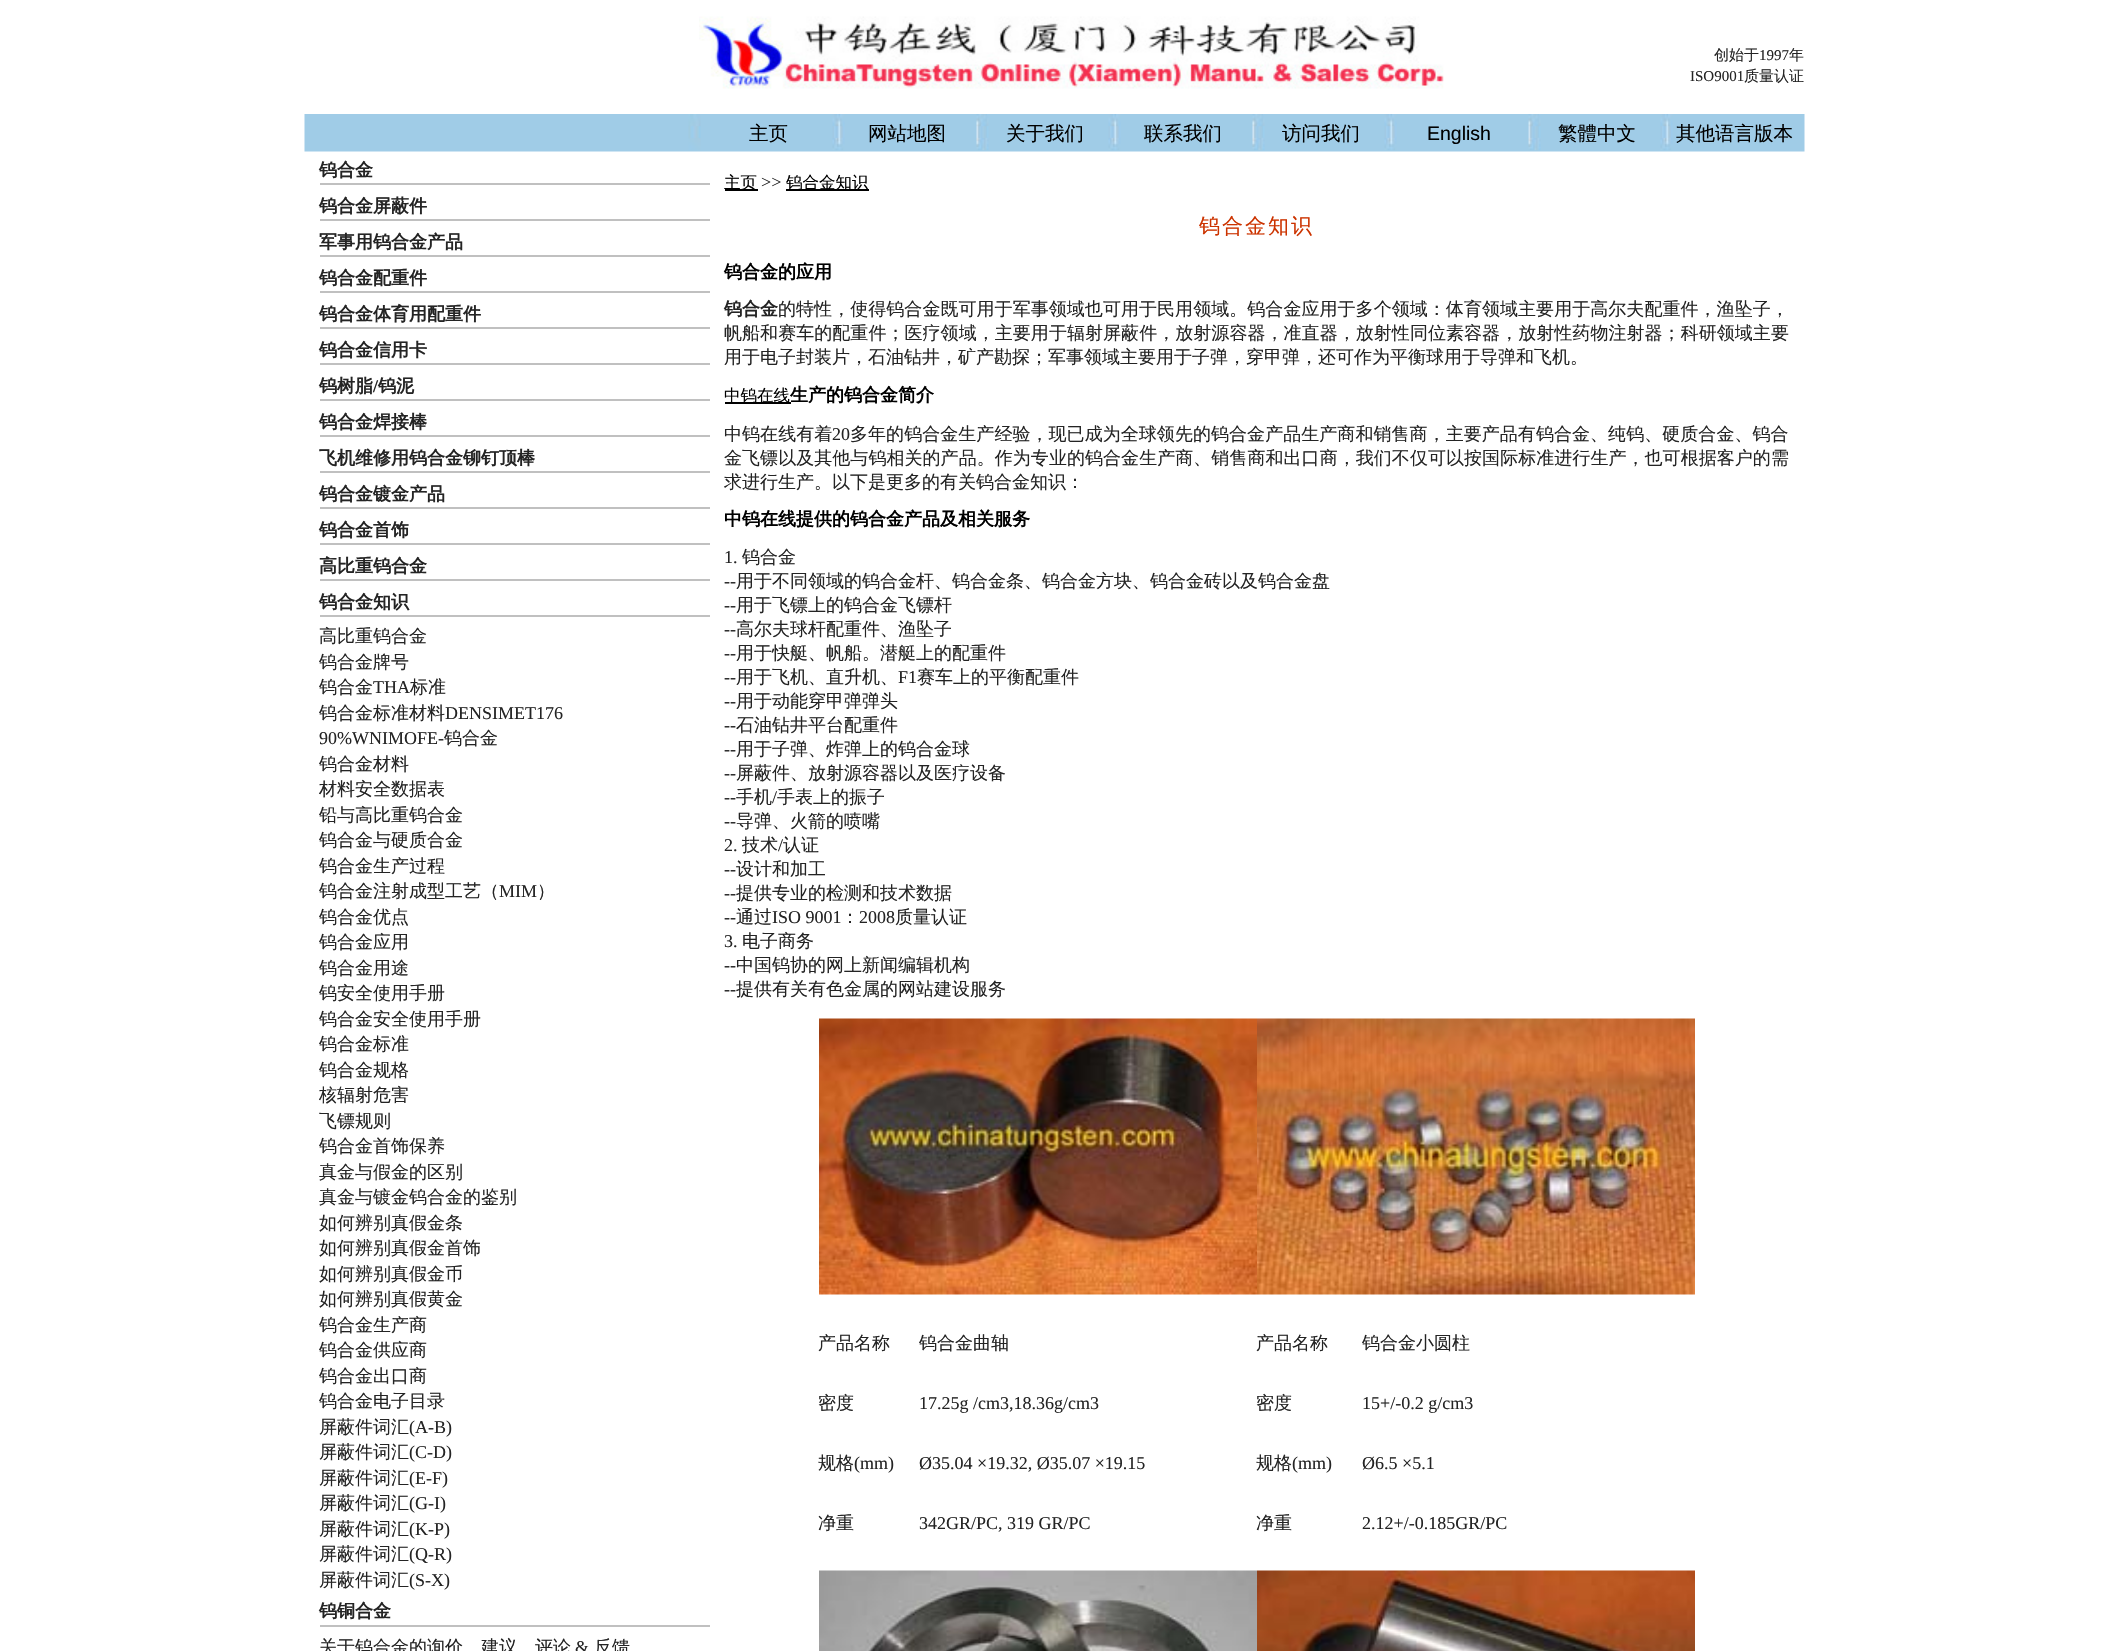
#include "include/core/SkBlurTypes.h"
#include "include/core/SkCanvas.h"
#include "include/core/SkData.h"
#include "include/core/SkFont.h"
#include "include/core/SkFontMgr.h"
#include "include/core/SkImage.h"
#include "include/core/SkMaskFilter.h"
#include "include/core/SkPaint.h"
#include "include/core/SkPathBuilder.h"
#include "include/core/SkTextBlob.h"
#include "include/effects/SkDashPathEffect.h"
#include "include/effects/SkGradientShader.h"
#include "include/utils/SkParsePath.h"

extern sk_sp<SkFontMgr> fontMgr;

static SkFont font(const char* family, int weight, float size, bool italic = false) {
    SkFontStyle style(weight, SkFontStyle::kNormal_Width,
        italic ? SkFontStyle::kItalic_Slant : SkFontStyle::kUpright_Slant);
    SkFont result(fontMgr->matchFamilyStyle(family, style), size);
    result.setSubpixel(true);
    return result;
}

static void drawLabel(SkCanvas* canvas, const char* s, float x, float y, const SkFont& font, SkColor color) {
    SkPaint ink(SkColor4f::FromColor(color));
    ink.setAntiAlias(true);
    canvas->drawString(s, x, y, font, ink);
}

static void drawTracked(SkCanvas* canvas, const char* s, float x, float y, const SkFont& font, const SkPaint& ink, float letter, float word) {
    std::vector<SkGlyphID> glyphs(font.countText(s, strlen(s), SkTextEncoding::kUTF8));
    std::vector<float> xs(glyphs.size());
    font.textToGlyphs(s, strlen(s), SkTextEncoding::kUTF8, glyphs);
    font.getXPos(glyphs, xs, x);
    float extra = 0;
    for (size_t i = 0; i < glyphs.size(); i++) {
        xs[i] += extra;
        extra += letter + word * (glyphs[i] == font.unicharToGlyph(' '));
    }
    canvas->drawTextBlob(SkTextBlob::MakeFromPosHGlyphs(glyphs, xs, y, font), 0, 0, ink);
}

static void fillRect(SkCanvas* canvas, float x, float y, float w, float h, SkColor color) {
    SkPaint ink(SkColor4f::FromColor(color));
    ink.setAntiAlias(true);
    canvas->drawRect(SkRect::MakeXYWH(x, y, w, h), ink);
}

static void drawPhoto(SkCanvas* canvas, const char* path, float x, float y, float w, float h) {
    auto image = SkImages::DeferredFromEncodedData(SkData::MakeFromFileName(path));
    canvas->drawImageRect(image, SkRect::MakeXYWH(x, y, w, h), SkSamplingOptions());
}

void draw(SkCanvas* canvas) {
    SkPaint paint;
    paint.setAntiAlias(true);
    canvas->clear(0xFFFFFFFF);
    drawPhoto(canvas, "assets/img1.png", 699, 16, 745, 73);
    SkFont font1 = font("WenQuanYi Zen Hei", 500, 15);
    drawLabel(canvas, "创始于", 1714, 60, font1, 0xFF242424);
    SkFont font2 = font("Liberation Serif", 400, 15);
    drawLabel(canvas, "1997", 1759, 60, font2, 0xFF242424);
    drawLabel(canvas, "年", 1789, 60, font1, 0xFF242424);
    drawLabel(canvas, "ISO9001", 1690, 81, font2, 0xFF242424);
    drawLabel(canvas, "质量认证", 1744, 81, font1, 0xFF242424);
    drawPhoto(canvas, "assets/img2.png", 304, 114, 1501, 38);
    SkFont font3 = font("WenQuanYi Zen Hei", 500, 19.5f);
    drawLabel(canvas, "主页", 749, 140, font3, 0xFF000000);
    drawLabel(canvas, "网站地图", 868, 140, font3, 0xFF000000);
    drawLabel(canvas, "关于我们", 1006, 140, font3, 0xFF000000);
    drawLabel(canvas, "联系我们", 1144, 140, font3, 0xFF000000);
    drawLabel(canvas, "访问我们", 1282, 140, font3, 0xFF000000);
    SkFont font4 = font("Liberation Sans", 400, 19.5f);
    drawLabel(canvas, "English", 1427, 140, font4, 0xFF000000);
    drawLabel(canvas, "繁體中文", 1558, 140, font3, 0xFF000000);
    drawLabel(canvas, "其他语言版本", 1676, 140, font3, 0xFF000000);
    fillRect(canvas, 320, 183, 397, 2, 0xFFC0C0C0);
    SkFont font5 = font("WenQuanYi Zen Hei", 700, 18);
    drawLabel(canvas, "钨合金", 319, 176, font5, 0xFF242424);
    fillRect(canvas, 320, 219, 397, 2, 0xFFC0C0C0);
    drawLabel(canvas, "钨合金屏蔽件", 319, 212, font5, 0xFF242424);
    fillRect(canvas, 320, 255, 397, 2, 0xFFC0C0C0);
    drawLabel(canvas, "军事用钨合金产品", 319, 248, font5, 0xFF242424);
    fillRect(canvas, 320, 291, 397, 2, 0xFFC0C0C0);
    drawLabel(canvas, "钨合金配重件", 319, 284, font5, 0xFF242424);
    fillRect(canvas, 320, 327, 397, 2, 0xFFC0C0C0);
    drawLabel(canvas, "钨合金体育用配重件", 319, 320, font5, 0xFF242424);
    fillRect(canvas, 320, 363, 397, 2, 0xFFC0C0C0);
    drawLabel(canvas, "钨合金信用卡", 319, 356, font5, 0xFF242424);
    fillRect(canvas, 320, 399, 397, 2, 0xFFC0C0C0);
    drawLabel(canvas, "钨树脂", 319, 392, font5, 0xFF242424);
    SkFont font6 = font("Liberation Serif", 700, 18);
    drawLabel(canvas, "/", 373, 392, font6, 0xFF242424);
    drawLabel(canvas, "钨泥", 378, 392, font5, 0xFF242424);
    fillRect(canvas, 320, 435, 397, 2, 0xFFC0C0C0);
    drawLabel(canvas, "钨合金焊接棒", 319, 428, font5, 0xFF242424);
    fillRect(canvas, 320, 471, 397, 2, 0xFFC0C0C0);
    drawLabel(canvas, "飞机维修用钨合金铆钉顶棒", 319, 464, font5, 0xFF242424);
    fillRect(canvas, 320, 507, 397, 2, 0xFFC0C0C0);
    drawLabel(canvas, "钨合金镀金产品", 319, 500, font5, 0xFF242424);
    fillRect(canvas, 320, 543, 397, 2, 0xFFC0C0C0);
    drawLabel(canvas, "钨合金首饰", 319, 536, font5, 0xFF242424);
    fillRect(canvas, 320, 579, 397, 2, 0xFFC0C0C0);
    drawLabel(canvas, "高比重钨合金", 319, 572, font5, 0xFF242424);
    fillRect(canvas, 320, 615, 397, 2, 0xFFC0C0C0);
    drawLabel(canvas, "钨合金知识", 319, 608, font5, 0xFF242424);
    SkFont font7 = font("WenQuanYi Zen Hei", 500, 18);
    drawLabel(canvas, "高比重钨合金", 319, 642, font7, 0xFF242424);
    drawLabel(canvas, "钨合金牌号", 319, 668, font7, 0xFF242424);
    drawLabel(canvas, "钨合金", 319, 693, font7, 0xFF242424);
    SkFont font8 = font("Liberation Serif", 400, 18);
    drawLabel(canvas, "THA", 373, 693, font8, 0xFF242424);
    drawLabel(canvas, "标准", 410, 693, font7, 0xFF242424);
    drawLabel(canvas, "钨合金标准材料", 319, 719, font7, 0xFF242424);
    drawLabel(canvas, "DENSIMET176", 445, 719, font8, 0xFF242424);
    drawLabel(canvas, "90%WNIMOFE-", 319, 744, font8, 0xFF242424);
    drawLabel(canvas, "钨合金", 444, 744, font7, 0xFF242424);
    drawLabel(canvas, "钨合金材料", 319, 770, font7, 0xFF242424);
    drawLabel(canvas, "材料安全数据表", 319, 795, font7, 0xFF242424);
    drawLabel(canvas, "铅与高比重钨合金", 319, 821, font7, 0xFF242424);
    drawLabel(canvas, "钨合金与硬质合金", 319, 846, font7, 0xFF242424);
    drawLabel(canvas, "钨合金生产过程", 319, 872, font7, 0xFF242424);
    drawLabel(canvas, "钨合金注射成型工艺（", 319, 897, font7, 0xFF242424);
    drawLabel(canvas, "MIM", 499, 897, font8, 0xFF242424);
    drawLabel(canvas, "）", 537, 897, font7, 0xFF242424);
    drawLabel(canvas, "钨合金优点", 319, 923, font7, 0xFF242424);
    drawLabel(canvas, "钨合金应用", 319, 948, font7, 0xFF242424);
    drawLabel(canvas, "钨合金用途", 319, 974, font7, 0xFF242424);
    drawLabel(canvas, "钨安全使用手册", 319, 999, font7, 0xFF242424);
    drawLabel(canvas, "钨合金安全使用手册", 319, 1025, font7, 0xFF242424);
    drawLabel(canvas, "钨合金标准", 319, 1050, font7, 0xFF242424);
    drawLabel(canvas, "钨合金规格", 319, 1076, font7, 0xFF242424);
    drawLabel(canvas, "核辐射危害", 319, 1101, font7, 0xFF242424);
    drawLabel(canvas, "飞镖规则", 319, 1127, font7, 0xFF242424);
    drawLabel(canvas, "钨合金首饰保养", 319, 1152, font7, 0xFF242424);
    drawLabel(canvas, "真金与假金的区别", 319, 1178, font7, 0xFF242424);
    drawLabel(canvas, "真金与镀金钨合金的鉴别", 319, 1203, font7, 0xFF242424);
    drawLabel(canvas, "如何辨别真假金条", 319, 1229, font7, 0xFF242424);
    drawLabel(canvas, "如何辨别真假金首饰", 319, 1254, font7, 0xFF242424);
    drawLabel(canvas, "如何辨别真假金币", 319, 1280, font7, 0xFF242424);
    drawLabel(canvas, "如何辨别真假黄金", 319, 1305, font7, 0xFF242424);
    drawLabel(canvas, "钨合金生产商", 319, 1331, font7, 0xFF242424);
    drawLabel(canvas, "钨合金供应商", 319, 1356, font7, 0xFF242424);
    drawLabel(canvas, "钨合金出口商", 319, 1382, font7, 0xFF242424);
    drawLabel(canvas, "钨合金电子目录", 319, 1407, font7, 0xFF242424);
    drawLabel(canvas, "屏蔽件词汇", 319, 1433, font7, 0xFF242424);
    drawLabel(canvas, "(A-B)", 409, 1433, font8, 0xFF242424);
    drawLabel(canvas, "屏蔽件词汇", 319, 1458, font7, 0xFF242424);
    drawLabel(canvas, "(C-D)", 409, 1458, font8, 0xFF242424);
    drawLabel(canvas, "屏蔽件词汇", 319, 1484, font7, 0xFF242424);
    drawLabel(canvas, "(E-F)", 409, 1484, font8, 0xFF242424);
    drawLabel(canvas, "屏蔽件词汇", 319, 1509, font7, 0xFF242424);
    drawLabel(canvas, "(G-I)", 409, 1509, font8, 0xFF242424);
    drawLabel(canvas, "屏蔽件词汇", 319, 1535, font7, 0xFF242424);
    drawLabel(canvas, "(K-P)", 409, 1535, font8, 0xFF242424);
    drawLabel(canvas, "屏蔽件词汇", 319, 1560, font7, 0xFF242424);
    drawLabel(canvas, "(Q-R)", 409, 1560, font8, 0xFF242424);
    drawLabel(canvas, "屏蔽件词汇", 319, 1586, font7, 0xFF242424);
    drawLabel(canvas, "(S-X)", 409, 1586, font8, 0xFF242424);
    fillRect(canvas, 320, 1625, 397, 2, 0xFFC0C0C0);
    drawLabel(canvas, "钨铜合金", 319, 1617, font5, 0xFF242424);
    drawLabel(canvas, "关于钨合金的询价，建议，评论", 319, 1653, font7, 0xFF242424);
    drawLabel(canvas, "&", 575, 1653, font8, 0xFF242424);
    drawLabel(canvas, "反馈", 594, 1653, font7, 0xFF242424);
    fillRect(canvas, 710, 183, 7, 1444, 0xFFFFFFFF);
    fillRect(canvas, 725, 189, 33, 2, 0xFF000000);
    SkFont font9 = font("WenQuanYi Zen Hei", 500, 16.5f);
    drawLabel(canvas, "主页", 724, 188, font9, 0xFF000000);
    drawLabel(canvas, ">>", 761, 188, font8, 0xFF242424);
    fillRect(canvas, 786, 189, 83, 2, 0xFF000000);
    drawLabel(canvas, "钨合金知识", 786, 188, font9, 0xFF000000);
    SkFont font10 = font("WenQuanYi Zen Hei", 500, 21);
    paint.setColor(0xFFCC3300);
    drawTracked(canvas, "钨合金知识", 1199, 233, font10, paint, 2, 0);
    drawLabel(canvas, "钨合金的应用", 724, 278, font5, 0xFF000000);
    drawLabel(canvas, "钨合金", 724, 315, font5, 0xFF242424);
    paint.setColor(0xFF242424);
    drawTracked(canvas, "的特性，使得钨合金既可用于军事领域也可用于民用领域。钨合金应用于多个领域：体育领域主要用于高尔夫配重件，渔坠子，", 778, 315, font7, paint, 0.05f, 0);
    drawTracked(canvas, "帆船和赛车的配重件；医疗领域，主要用于辐射屏蔽件，放射源容器，准直器，放射性同位素容器，放射性药物注射器；科研领域主要", 724, 339, font7, paint, 0.05f, 0);
    drawLabel(canvas, "用于电子封装片，石油钻井，矿产勘探；军事领域主要用于子弹，穿甲弹，还可作为平衡球用于导弹和飞机。", 724, 363, font7, 0xFF242424);
    fillRect(canvas, 725, 402, 66, 2, 0xFF000000);
    drawLabel(canvas, "中钨在线", 724, 401, font9, 0xFF000000);
    drawLabel(canvas, "生产的钨合金简介", 790, 401, font5, 0xFF000000);
    drawTracked(canvas, "中钨在线有着", 724, 440, font7, paint, 0.05f, 0);
    drawTracked(canvas, "20", 832, 440, font8, paint, 0.05f, 0);
    drawTracked(canvas, "多年的钨合金生产经验，现已成为全球领先的钨合金产品生产商和销售商，主要产品有钨合金、纯钨、硬质合金、钨合", 850, 440, font7, paint, 0.05f, 0);
    drawTracked(canvas, "金飞镖以及其他与钨相关的产品。作为专业的钨合金生产商、销售商和出口商，我们不仅可以按国际标准进行生产，也可根据客户的需", 724, 464, font7, paint, 0.05f, 0);
    drawLabel(canvas, "求进行生产。以下是更多的有关钨合金知识：", 724, 488, font7, 0xFF242424);
    drawLabel(canvas, "中钨在线提供的钨合金产品及相关服务", 724, 525, font5, 0xFF000000);
    drawLabel(canvas, "1.", 724, 563, font8, 0xFF242424);
    drawLabel(canvas, "钨合金", 742, 563, font7, 0xFF242424);
    drawLabel(canvas, "--", 724, 587, font8, 0xFF242424);
    drawLabel(canvas, "用于不同领域的钨合金杆、钨合金条、钨合金方块、钨合金砖以及钨合金盘", 736, 587, font7, 0xFF242424);
    drawLabel(canvas, "--", 724, 611, font8, 0xFF242424);
    drawLabel(canvas, "用于飞镖上的钨合金飞镖杆", 736, 611, font7, 0xFF242424);
    drawLabel(canvas, "--", 724, 635, font8, 0xFF242424);
    drawLabel(canvas, "高尔夫球杆配重件、渔坠子", 736, 635, font7, 0xFF242424);
    drawLabel(canvas, "--", 724, 659, font8, 0xFF242424);
    drawLabel(canvas, "用于快艇、帆船。潜艇上的配重件", 736, 659, font7, 0xFF242424);
    drawLabel(canvas, "--", 724, 683, font8, 0xFF242424);
    drawLabel(canvas, "用于飞机、直升机、", 736, 683, font7, 0xFF242424);
    drawLabel(canvas, "F1", 898, 683, font8, 0xFF242424);
    drawLabel(canvas, "赛车上的平衡配重件", 917, 683, font7, 0xFF242424);
    drawLabel(canvas, "--", 724, 707, font8, 0xFF242424);
    drawLabel(canvas, "用于动能穿甲弹弹头", 736, 707, font7, 0xFF242424);
    drawLabel(canvas, "--", 724, 731, font8, 0xFF242424);
    drawLabel(canvas, "石油钻井平台配重件", 736, 731, font7, 0xFF242424);
    drawLabel(canvas, "--", 724, 755, font8, 0xFF242424);
    drawLabel(canvas, "用于子弹、炸弹上的钨合金球", 736, 755, font7, 0xFF242424);
    drawLabel(canvas, "--", 724, 779, font8, 0xFF242424);
    drawLabel(canvas, "屏蔽件、放射源容器以及医疗设备", 736, 779, font7, 0xFF242424);
    drawLabel(canvas, "--", 724, 803, font8, 0xFF242424);
    drawLabel(canvas, "手机", 736, 803, font7, 0xFF242424);
    drawLabel(canvas, "/", 772, 803, font8, 0xFF242424);
    drawLabel(canvas, "手表上的振子", 777, 803, font7, 0xFF242424);
    drawLabel(canvas, "--", 724, 827, font8, 0xFF242424);
    drawLabel(canvas, "导弹、火箭的喷嘴", 736, 827, font7, 0xFF242424);
    drawLabel(canvas, "2.", 724, 851, font8, 0xFF242424);
    drawLabel(canvas, "技术", 742, 851, font7, 0xFF242424);
    drawLabel(canvas, "/", 778, 851, font8, 0xFF242424);
    drawLabel(canvas, "认证", 783, 851, font7, 0xFF242424);
    drawLabel(canvas, "--", 724, 875, font8, 0xFF242424);
    drawLabel(canvas, "设计和加工", 736, 875, font7, 0xFF242424);
    drawLabel(canvas, "--", 724, 899, font8, 0xFF242424);
    drawLabel(canvas, "提供专业的检测和技术数据", 736, 899, font7, 0xFF242424);
    drawLabel(canvas, "--", 724, 923, font8, 0xFF242424);
    drawLabel(canvas, "通过", 736, 923, font7, 0xFF242424);
    drawLabel(canvas, "ISO 9001", 772, 923, font8, 0xFF242424);
    drawLabel(canvas, "：", 841, 923, font7, 0xFF242424);
    drawLabel(canvas, "2008", 859, 923, font8, 0xFF242424);
    drawLabel(canvas, "质量认证", 895, 923, font7, 0xFF242424);
    drawLabel(canvas, "3.", 724, 947, font8, 0xFF242424);
    drawLabel(canvas, "电子商务", 742, 947, font7, 0xFF242424);
    drawLabel(canvas, "--", 724, 971, font8, 0xFF242424);
    drawLabel(canvas, "中国钨协的网上新闻编辑机构", 736, 971, font7, 0xFF242424);
    drawLabel(canvas, "--", 724, 995, font8, 0xFF242424);
    drawLabel(canvas, "提供有关有色金属的网站建设服务", 736, 995, font7, 0xFF242424);
    drawPhoto(canvas, "assets/img3.png", 819, 1018, 438, 277);
    drawPhoto(canvas, "assets/img4.png", 1257, 1018, 438, 277);
    drawLabel(canvas, "产品名称", 818, 1349, font7, 0xFF242424);
    drawLabel(canvas, "钨合金曲轴", 919, 1349, font7, 0xFF242424);
    drawLabel(canvas, "产品名称", 1256, 1349, font7, 0xFF242424);
    drawLabel(canvas, "钨合金小圆柱", 1362, 1349, font7, 0xFF242424);
    drawLabel(canvas, "密度", 818, 1409, font7, 0xFF242424);
    drawLabel(canvas, "17.25g /cm3,18.36g/cm3", 919, 1409, font8, 0xFF242424);
    drawLabel(canvas, "密度", 1256, 1409, font7, 0xFF242424);
    drawLabel(canvas, "15+/-0.2 g/cm3", 1362, 1409, font8, 0xFF242424);
    drawLabel(canvas, "规格", 818, 1469, font7, 0xFF242424);
    drawLabel(canvas, "(mm)", 854, 1469, font8, 0xFF242424);
    drawLabel(canvas, "Ø35.04 ×19.32, Ø35.07 ×19.15", 919, 1469, font8, 0xFF242424);
    drawLabel(canvas, "规格", 1256, 1469, font7, 0xFF242424);
    drawLabel(canvas, "(mm)", 1292, 1469, font8, 0xFF242424);
    drawLabel(canvas, "Ø6.5 ×5.1", 1362, 1469, font8, 0xFF242424);
    drawLabel(canvas, "净重", 818, 1529, font7, 0xFF242424);
    drawLabel(canvas, "342GR/PC, 319 GR/PC", 919, 1529, font8, 0xFF242424);
    drawLabel(canvas, "净重", 1256, 1529, font7, 0xFF242424);
    drawLabel(canvas, "2.12+/-0.185GR/PC", 1362, 1529, font8, 0xFF242424);
    drawPhoto(canvas, "assets/img5.png", 819, 1570, 438, 81);
    drawPhoto(canvas, "assets/img6.png", 1257, 1570, 438, 81);
}
